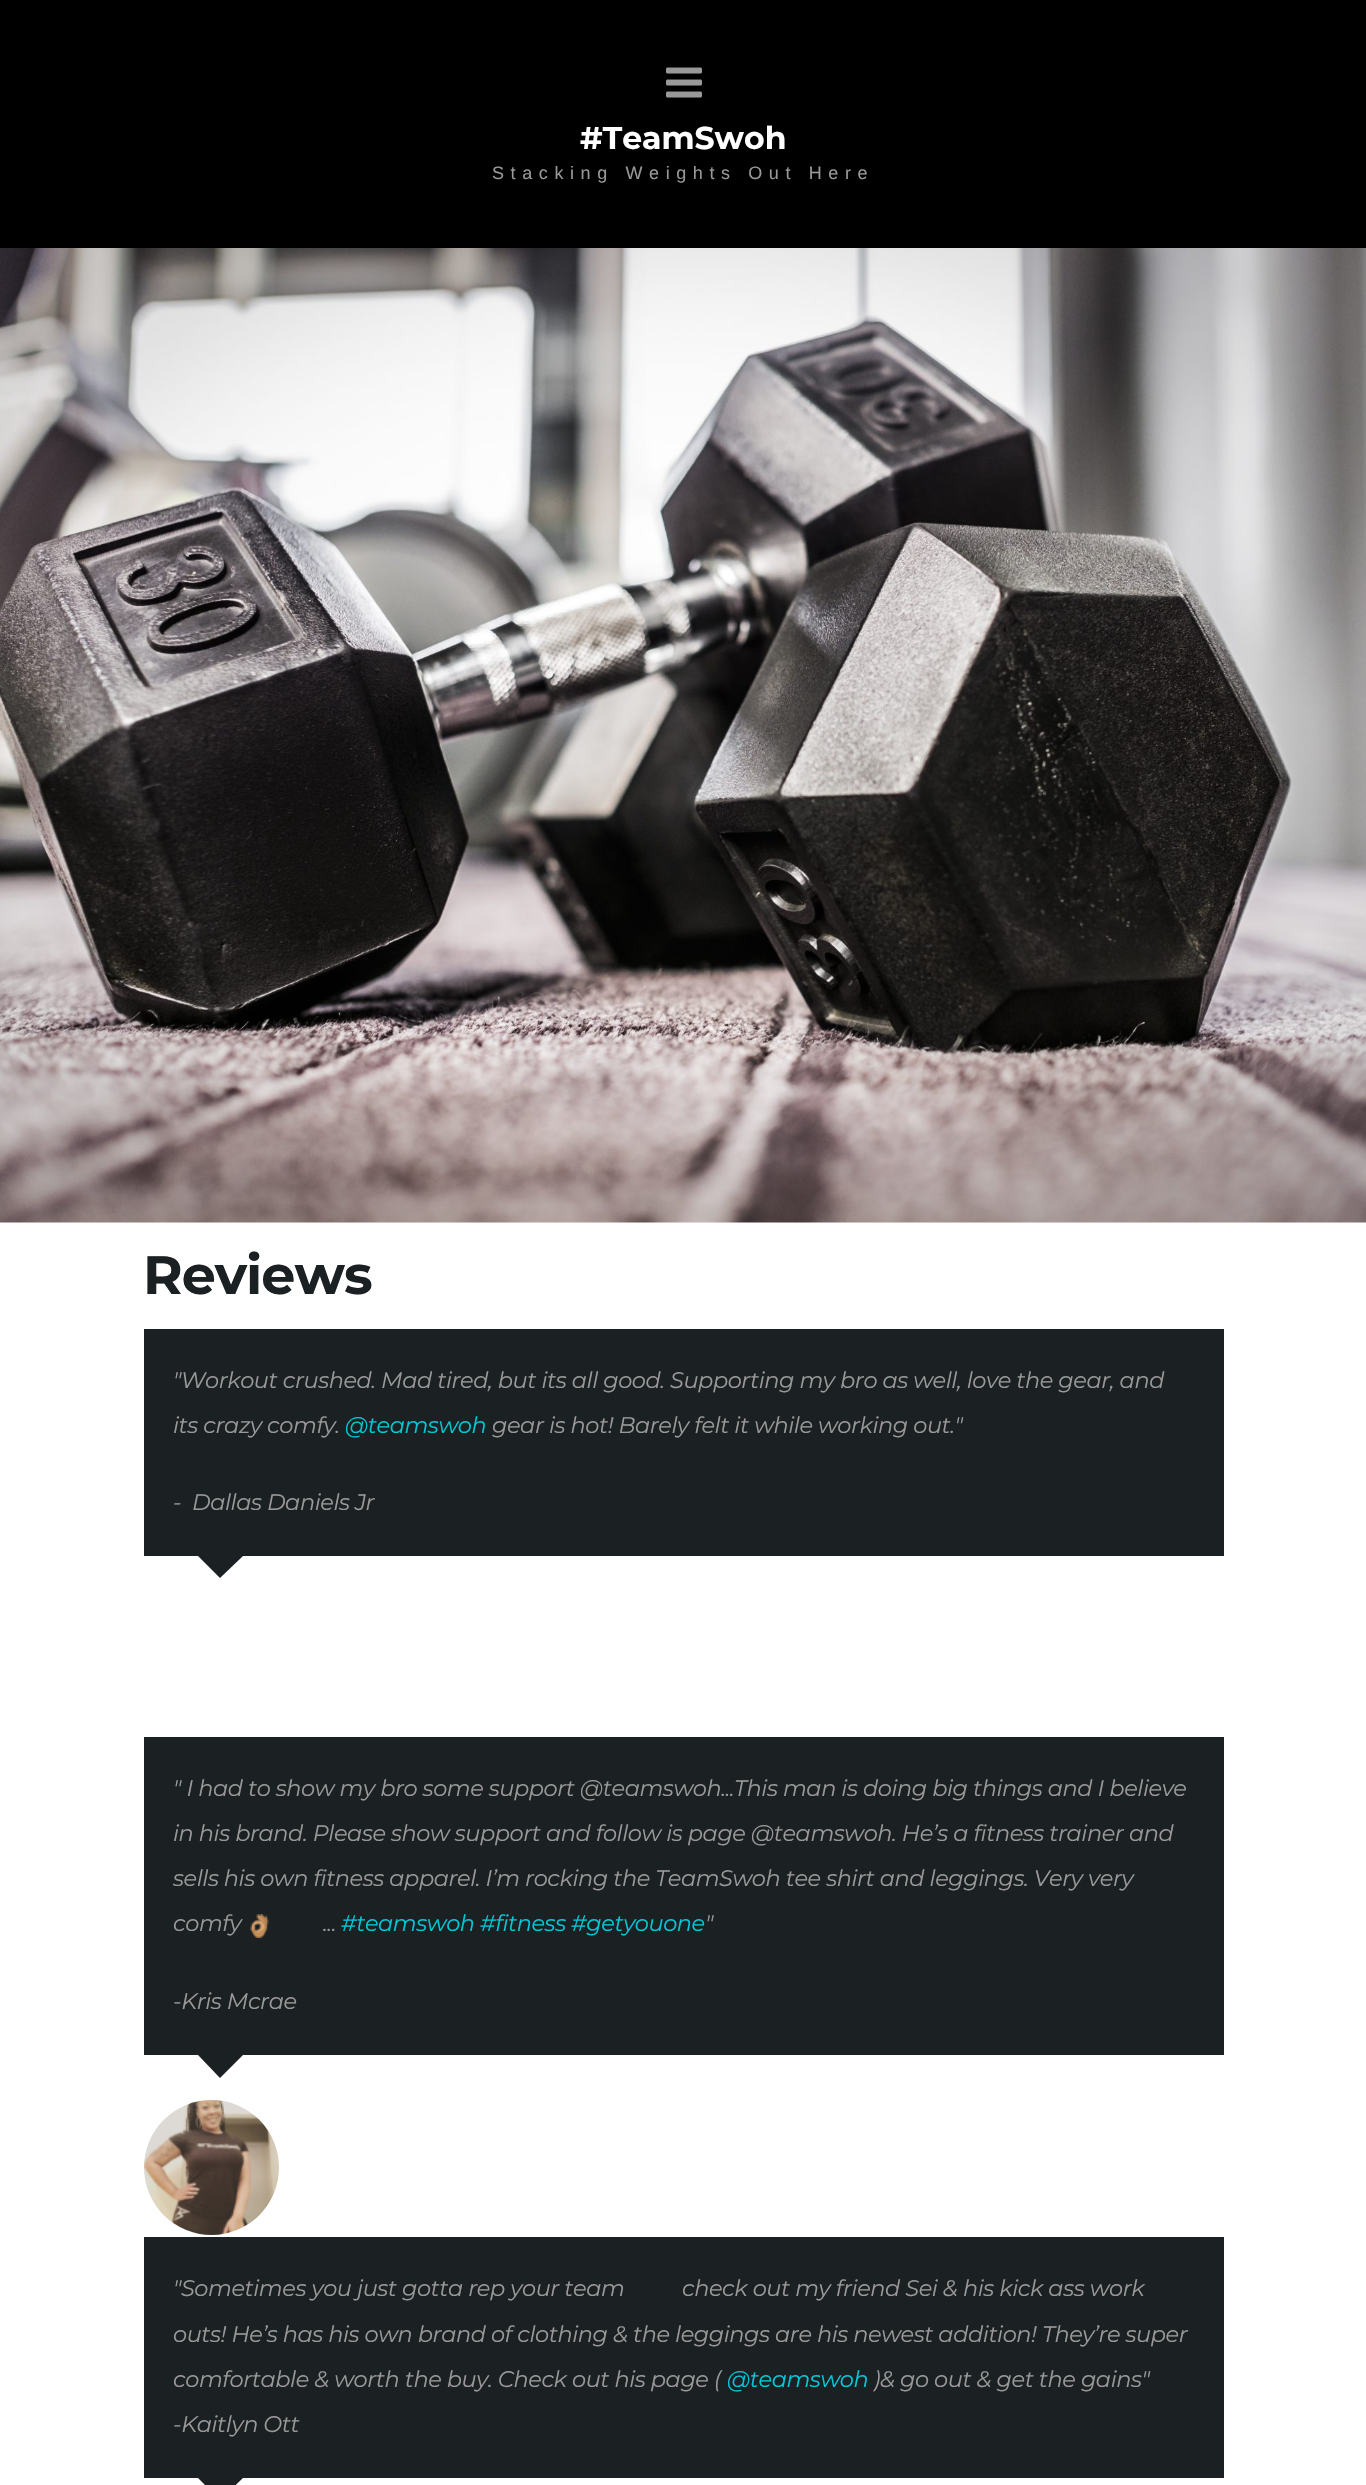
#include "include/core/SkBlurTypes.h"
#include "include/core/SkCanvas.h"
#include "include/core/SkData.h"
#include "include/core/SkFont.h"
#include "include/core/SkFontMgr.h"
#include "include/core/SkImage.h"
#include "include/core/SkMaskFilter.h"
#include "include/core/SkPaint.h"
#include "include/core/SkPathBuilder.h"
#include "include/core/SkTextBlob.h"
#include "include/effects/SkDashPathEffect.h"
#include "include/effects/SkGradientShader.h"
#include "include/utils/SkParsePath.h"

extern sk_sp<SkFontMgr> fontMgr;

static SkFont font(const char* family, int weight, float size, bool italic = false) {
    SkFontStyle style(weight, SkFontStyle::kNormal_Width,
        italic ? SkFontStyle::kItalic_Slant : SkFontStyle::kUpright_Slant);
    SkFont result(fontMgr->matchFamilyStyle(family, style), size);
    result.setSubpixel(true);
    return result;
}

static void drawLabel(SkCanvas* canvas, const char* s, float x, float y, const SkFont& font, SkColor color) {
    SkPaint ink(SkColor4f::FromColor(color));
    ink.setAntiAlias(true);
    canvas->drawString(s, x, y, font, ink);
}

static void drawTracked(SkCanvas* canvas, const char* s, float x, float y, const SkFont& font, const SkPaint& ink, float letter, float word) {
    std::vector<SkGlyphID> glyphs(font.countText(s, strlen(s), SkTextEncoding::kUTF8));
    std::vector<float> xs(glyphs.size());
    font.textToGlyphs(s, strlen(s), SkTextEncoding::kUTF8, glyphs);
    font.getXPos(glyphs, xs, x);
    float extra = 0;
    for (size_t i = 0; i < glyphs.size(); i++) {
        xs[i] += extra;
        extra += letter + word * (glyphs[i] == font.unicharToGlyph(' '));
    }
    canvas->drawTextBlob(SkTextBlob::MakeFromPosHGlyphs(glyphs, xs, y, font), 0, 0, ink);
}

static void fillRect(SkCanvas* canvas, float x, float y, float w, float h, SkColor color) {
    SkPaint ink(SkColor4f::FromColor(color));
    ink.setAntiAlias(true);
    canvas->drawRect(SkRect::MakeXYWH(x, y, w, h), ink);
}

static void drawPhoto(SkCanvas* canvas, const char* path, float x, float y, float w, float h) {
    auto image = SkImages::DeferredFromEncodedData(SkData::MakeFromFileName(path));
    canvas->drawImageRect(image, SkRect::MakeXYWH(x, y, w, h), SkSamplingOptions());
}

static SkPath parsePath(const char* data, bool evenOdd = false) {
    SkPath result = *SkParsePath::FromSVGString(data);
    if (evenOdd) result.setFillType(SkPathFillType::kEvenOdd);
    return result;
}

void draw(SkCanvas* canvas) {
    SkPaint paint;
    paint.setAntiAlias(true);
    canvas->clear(0xFFFFFFFF);
    fillRect(canvas, 0, 0, 1366, 248, 0xFF000000);
    drawPhoto(canvas, "assets/img1.png", 666, 67, 36, 31);
    SkFont font1 = font("Montserrat", 700, 31.5f);
    drawLabel(canvas, "#TeamSwoh", 580, 149, font1, 0xFFFFFFFF);
    SkFont font2 = font("Liberation Sans", 400, 18);
    paint.setColor(0xFF999999);
    drawTracked(canvas, "Stacking Weights Out Here", 492, 179, font2, paint, 6.6f, 0);
    drawPhoto(canvas, "assets/img2.png", 0, 248, 1366, 975);
    SkFont font3 = font("Montserrat", 700, 54);
    paint.setColor(0xFF1B2022);
    drawTracked(canvas, "Reviews", 143, 1294, font3, paint, -1, 0);
    fillRect(canvas, 144, 1329, 1080, 227, 0xFF1B2022);
    SkFont font4 = font("Montserrat", 400, 22.5f, true);
    paint.setColor(0xFF999999);
    drawTracked(canvas, "\"Workout crushed. Mad tired, but its all good. Supporting my bro as well, love the gear, and", 173, 1388, font4, paint, -0.45f, 0);
    drawTracked(canvas, "its crazy comfy.", 173, 1433, font4, paint, -0.45f, 0);
    paint.setColor(0xFF00C8D6);
    drawTracked(canvas, "@teamswoh", 345, 1433, font4, paint, -0.45f, 0);
    paint.setColor(0xFF999999);
    drawTracked(canvas, "gear is hot! Barely felt it while working out.\"", 492, 1433, font4, paint, -0.45f, 0);
    drawTracked(canvas, "-  Dallas Daniels Jr", 173, 1510, font4, paint, -0.45f, 0);
    paint.setColor(0xFF1B2022);
    canvas->drawPath(parsePath("M198 1556H243L220 1578Z"), paint);
    fillRect(canvas, 144, 1737, 1080, 318, 0xFF1B2022);
    paint.setColor(0xFF999999);
    drawTracked(canvas, "\" I had to show my bro some support @teamswoh...This man is doing big things and I believe", 173, 1796, font4, paint, -0.45f, 0);
    drawTracked(canvas, "in his brand. Please show support and follow is page @teamswoh. He’s a fitness trainer and", 173, 1841, font4, paint, -0.45f, 0);
    drawTracked(canvas, "sells his own fitness apparel. I’m rocking the TeamSwoh tee shirt and leggings. Very very", 173, 1886, font4, paint, -0.45f, 0);
    drawTracked(canvas, "comfy", 173, 1931, font4, paint, -0.45f, 0);
    drawPhoto(canvas, "assets/img3.png", 250, 1914, 19, 24);
    paint.setColor(0xFF00C8D6);
    drawTracked(canvas, "#teamswoh #fitness #getyouone", 341, 1931, font4, paint, -0.45f, 0);
    paint.setColor(0xFF999999);
    drawTracked(canvas, "\"", 705, 1931, font4, paint, -0.45f, 0);
    drawTracked(canvas, "...", 323, 1931, font4, paint, -0.45f, 0);
    drawTracked(canvas, "-Kris Mcrae", 173, 2009, font4, paint, -0.45f, 0);
    paint.setColor(0xFF1B2022);
    canvas->drawPath(parsePath("M198 2055H243L220 2078Z"), paint);
    drawPhoto(canvas, "assets/img4.png", 144, 2100, 135, 135);
    fillRect(canvas, 144, 2237, 1080, 241, 0xFF1B2022);
    paint.setColor(0xFF999999);
    drawTracked(canvas, "\"Sometimes you just gotta rep your team", 173, 2296, font4, paint, -0.45f, 0);
    drawTracked(canvas, "check out my friend Sei & his kick ass work", 682, 2296, font4, paint, -0.45f, 0);
    drawTracked(canvas, "outs! He’s has his own brand of clothing & the leggings are his newest addition! They’re super", 173, 2342, font4, paint, -0.45f, 0);
    drawTracked(canvas, "comfortable & worth the buy. Check out his page (", 173, 2387, font4, paint, -0.45f, 0);
    paint.setColor(0xFF00C8D6);
    drawTracked(canvas, "@teamswoh", 727, 2387, font4, paint, -0.45f, 0);
    paint.setColor(0xFF999999);
    drawTracked(canvas, ")& go out & get the gains\"", 873, 2387, font4, paint, -0.45f, 0);
    drawTracked(canvas, "-Kaitlyn Ott", 173, 2432, font4, paint, -0.45f, 0);
    paint.setColor(0xFF1B2022);
    canvas->drawPath(parsePath("M198 2478H243L220 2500Z"), paint);
}
